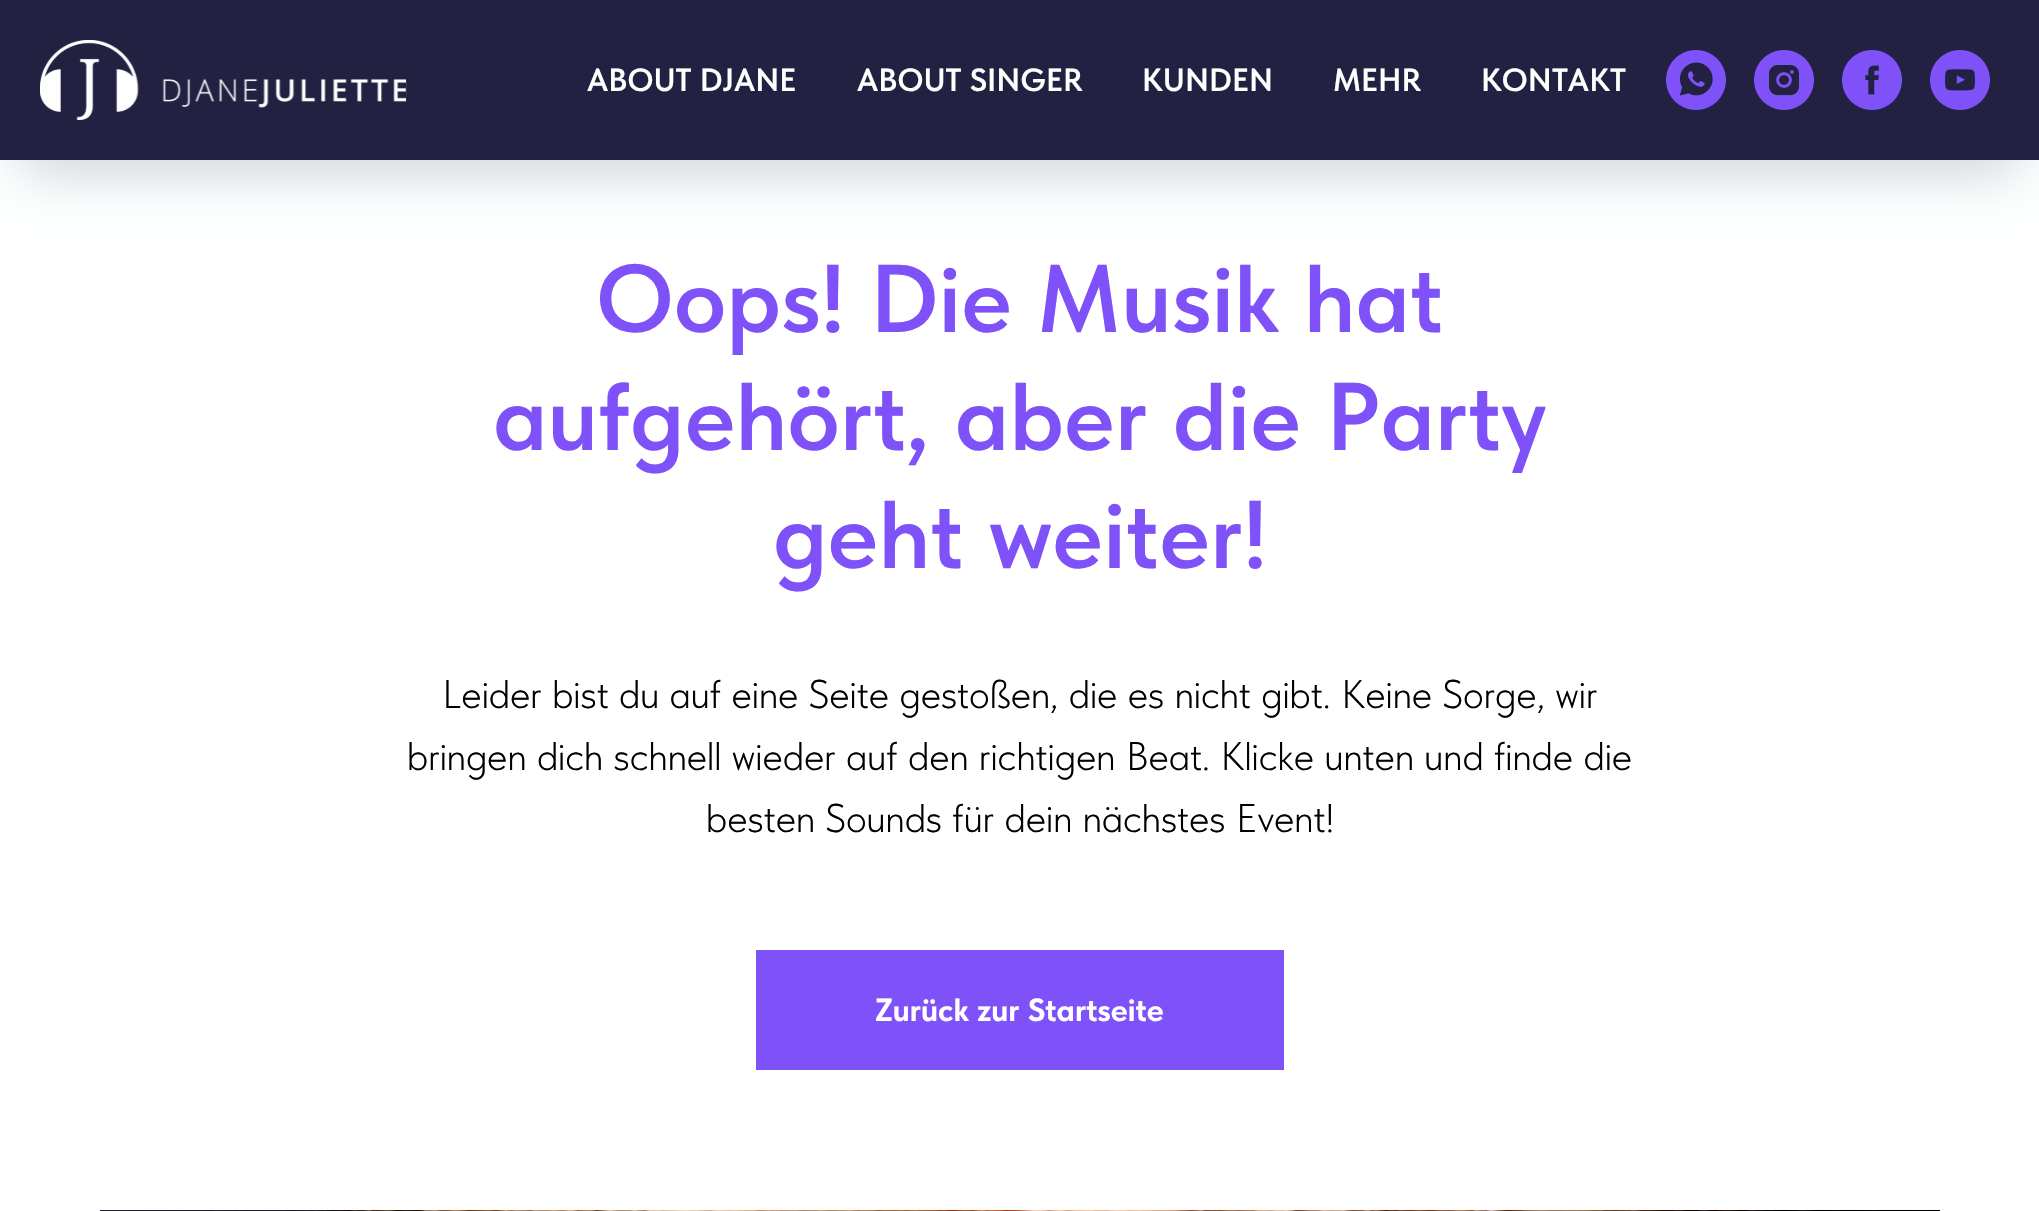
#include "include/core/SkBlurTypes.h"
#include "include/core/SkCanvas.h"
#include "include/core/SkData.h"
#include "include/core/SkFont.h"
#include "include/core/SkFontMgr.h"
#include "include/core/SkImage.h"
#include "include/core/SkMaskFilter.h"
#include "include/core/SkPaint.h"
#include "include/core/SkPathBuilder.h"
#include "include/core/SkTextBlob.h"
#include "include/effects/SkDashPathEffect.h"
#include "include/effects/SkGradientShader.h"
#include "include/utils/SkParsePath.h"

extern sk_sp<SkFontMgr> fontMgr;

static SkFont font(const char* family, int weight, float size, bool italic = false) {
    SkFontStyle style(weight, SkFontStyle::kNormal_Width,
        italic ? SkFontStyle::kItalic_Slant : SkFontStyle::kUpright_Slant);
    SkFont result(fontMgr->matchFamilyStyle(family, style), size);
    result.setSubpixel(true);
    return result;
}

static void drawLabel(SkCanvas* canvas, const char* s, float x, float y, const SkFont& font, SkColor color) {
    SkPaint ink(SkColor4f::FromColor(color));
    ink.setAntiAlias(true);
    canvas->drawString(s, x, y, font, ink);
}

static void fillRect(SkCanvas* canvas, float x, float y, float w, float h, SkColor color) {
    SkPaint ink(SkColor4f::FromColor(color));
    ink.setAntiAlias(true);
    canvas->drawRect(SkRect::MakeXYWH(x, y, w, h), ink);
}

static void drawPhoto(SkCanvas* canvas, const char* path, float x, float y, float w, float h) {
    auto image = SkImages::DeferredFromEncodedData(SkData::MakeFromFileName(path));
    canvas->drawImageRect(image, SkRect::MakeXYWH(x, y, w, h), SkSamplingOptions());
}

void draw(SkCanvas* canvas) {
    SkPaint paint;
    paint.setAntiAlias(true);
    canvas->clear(0xFFFFFFFF);
    paint.setColor(0x33000B30);
    paint.setMaskFilter(SkMaskFilter::MakeBlur(kNormal_SkBlurStyle, 30));
    canvas->drawRect(SkRect::MakeXYWH(20, 50, 2000, 120), paint);
    paint.setMaskFilter(nullptr);
    fillRect(canvas, 0, 0, 2039, 160, 0xFF232141);
    drawPhoto(canvas, "assets/img1.png", 40, 40, 367, 80);
    SkFont font1 = font("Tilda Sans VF", 600, 32);
    drawLabel(canvas, "ABOUT DJANE", 587, 91, font1, 0xFFFFFFFF);
    drawLabel(canvas, "ABOUT SINGER", 857, 91, font1, 0xFFFFFFFF);
    drawLabel(canvas, "KUNDEN", 1142, 91, font1, 0xFFFFFFFF);
    drawLabel(canvas, "MEHR", 1333, 91, font1, 0xFFFFFFFF);
    drawLabel(canvas, "KONTAKT", 1481, 91, font1, 0xFFFFFFFF);
    drawPhoto(canvas, "assets/img2.png", 1666, 50, 60, 60);
    drawPhoto(canvas, "assets/img3.png", 1754, 50, 60, 60);
    drawPhoto(canvas, "assets/img4.png", 1842, 50, 60, 60);
    drawPhoto(canvas, "assets/img5.png", 1930, 50, 60, 60);
    SkFont font2 = font("Tilda Sans VF", 600, 96);
    drawLabel(canvas, "Oops! Die Musik hat", 596, 332, font2, 0xFF7E52F8);
    drawLabel(canvas, "aufgehört, aber die Party", 493, 450, font2, 0xFF7E52F8);
    drawLabel(canvas, "geht weiter!", 773, 568, font2, 0xFF7E52F8);
    SkFont font3 = font("Tilda Sans VF", 300, 40);
    drawLabel(canvas, "Leider bist du auf eine Seite gestoßen, die es nicht gibt. Keine Sorge, wir", 442, 708, font3, 0xFF000000);
    drawLabel(canvas, "bringen dich schnell wieder auf den richtigen Beat. Klicke unten und finde die", 407, 770, font3, 0xFF000000);
    drawLabel(canvas, "besten Sounds für dein nächstes Event!", 706, 832, font3, 0xFF000000);
    fillRect(canvas, 756, 950, 528, 120, 0xFF7E52F8);
    SkFont font4 = font("Tilda Sans VF", 700, 32);
    drawLabel(canvas, "Zurück zur Startseite", 875, 1021, font4, 0xFFFFFFFF);
    drawPhoto(canvas, "assets/img6.png", 100, 1210, 1840, 1);
}
